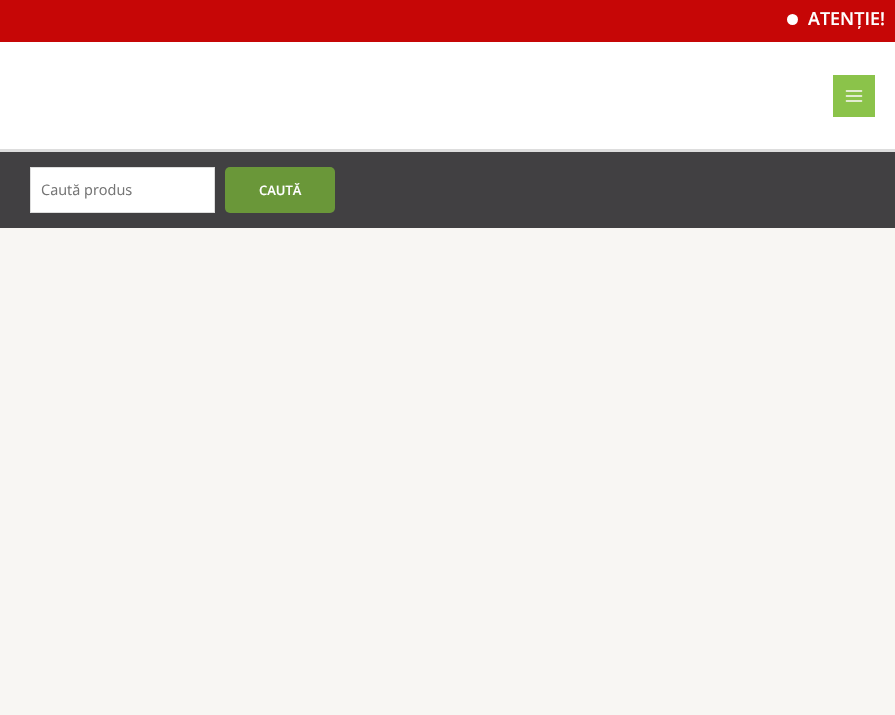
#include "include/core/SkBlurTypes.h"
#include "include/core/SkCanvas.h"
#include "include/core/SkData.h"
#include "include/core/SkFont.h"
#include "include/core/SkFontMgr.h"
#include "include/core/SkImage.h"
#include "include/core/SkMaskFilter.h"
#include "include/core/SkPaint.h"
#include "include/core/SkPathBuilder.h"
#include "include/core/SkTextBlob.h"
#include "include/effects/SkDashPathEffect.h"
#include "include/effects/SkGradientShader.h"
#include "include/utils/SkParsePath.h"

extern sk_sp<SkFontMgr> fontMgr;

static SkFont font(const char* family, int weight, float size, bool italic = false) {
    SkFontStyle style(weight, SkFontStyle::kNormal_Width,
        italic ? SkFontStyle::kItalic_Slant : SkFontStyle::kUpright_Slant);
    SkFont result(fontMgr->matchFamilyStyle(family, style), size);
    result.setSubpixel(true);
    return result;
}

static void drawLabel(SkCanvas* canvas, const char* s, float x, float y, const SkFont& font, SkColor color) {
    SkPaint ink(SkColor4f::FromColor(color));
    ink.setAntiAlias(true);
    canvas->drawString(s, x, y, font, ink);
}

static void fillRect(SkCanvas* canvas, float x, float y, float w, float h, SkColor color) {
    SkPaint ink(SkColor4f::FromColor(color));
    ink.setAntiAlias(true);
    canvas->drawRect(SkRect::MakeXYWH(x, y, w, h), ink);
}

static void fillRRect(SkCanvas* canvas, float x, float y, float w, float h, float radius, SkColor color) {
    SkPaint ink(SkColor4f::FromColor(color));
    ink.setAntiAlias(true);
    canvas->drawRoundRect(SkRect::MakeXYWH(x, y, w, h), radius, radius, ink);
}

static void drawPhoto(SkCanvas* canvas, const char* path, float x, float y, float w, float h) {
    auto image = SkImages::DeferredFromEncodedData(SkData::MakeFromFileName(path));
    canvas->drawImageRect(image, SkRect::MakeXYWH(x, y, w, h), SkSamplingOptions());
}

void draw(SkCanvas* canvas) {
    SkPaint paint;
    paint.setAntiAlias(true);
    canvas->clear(0xFFF8F6F3);
    fillRect(canvas, 0, 0, 895, 42, 0xFFC60606);
    paint.setColor(0xFFFFFFFF);
    canvas->drawCircle(792.5f, 19.5f, 5.5f, paint);
    SkFont font1 = font("Open Sans", 600, 18);
    drawLabel(canvas, "ATENȚIE!", 808, 25, font1, 0xFFFFFFFF);
    fillRect(canvas, 0, 42, 895, 107, 0xFFFFFFFF);
    fillRect(canvas, 0, 149, 895, 3, 0xFFDDDDDD);
    fillRect(canvas, 833, 75, 42, 42, 0xFF8BC34A);
    drawPhoto(canvas, "assets/img1.png", 845, 90, 18, 12);
    fillRect(canvas, 0, 152, 895, 76, 0xFF414042);
    canvas->drawRect(SkRect::MakeXYWH(30.5f, 167.5f, 184, 45), paint);
    paint.setStroke(true);
    paint.setStrokeWidth(1);
    paint.setColor(0xFFDDDDDD);
    canvas->drawRect(SkRect::MakeXYWH(30.5f, 167.5f, 184, 45), paint);
    SkFont font2 = font("Open Sans", 400, 14.5f);
    drawLabel(canvas, "Caută produs", 41, 195, font2, 0xFF757575);
    fillRRect(canvas, 225, 167, 110, 46, 5, 0xFF6A9739);
    SkFont font3 = font("Open Sans", 600, 13);
    drawLabel(canvas, "CAUTĂ", 259, 195, font3, 0xFFFFFFFF);
}
